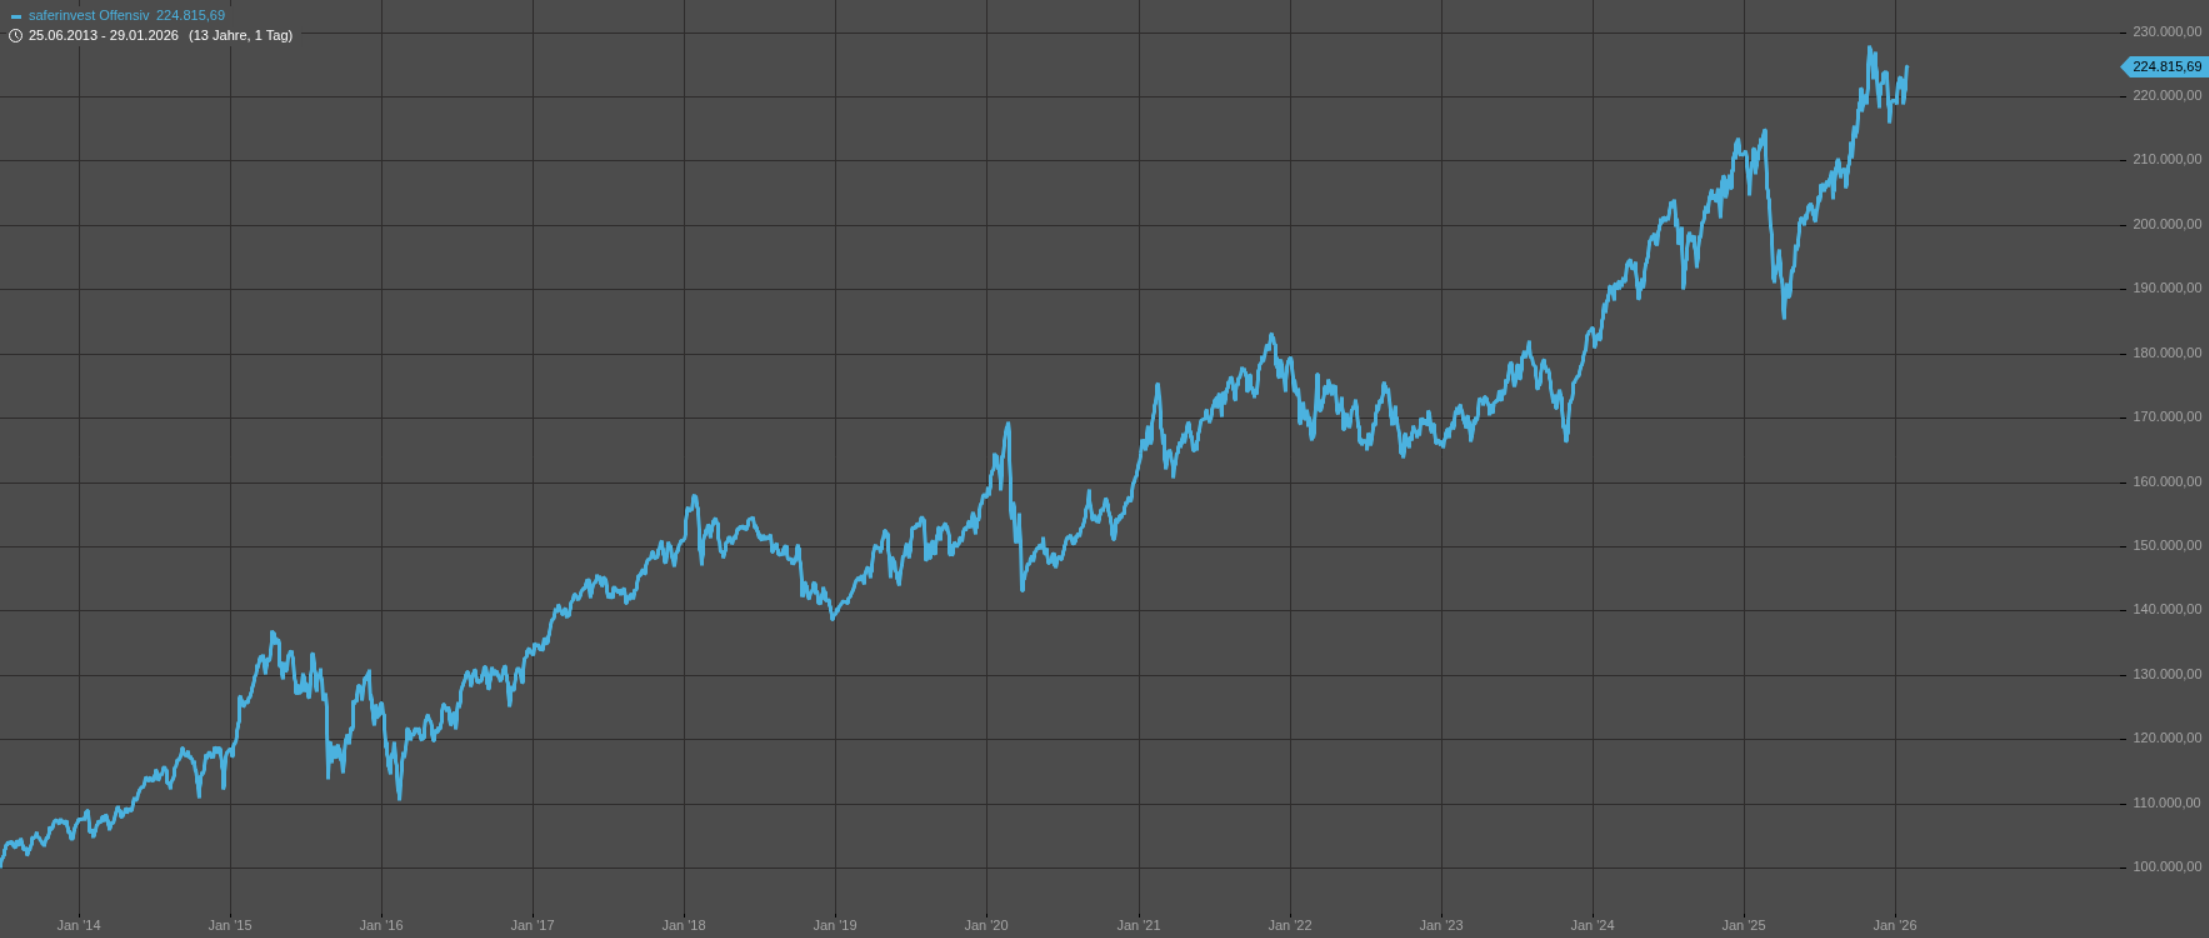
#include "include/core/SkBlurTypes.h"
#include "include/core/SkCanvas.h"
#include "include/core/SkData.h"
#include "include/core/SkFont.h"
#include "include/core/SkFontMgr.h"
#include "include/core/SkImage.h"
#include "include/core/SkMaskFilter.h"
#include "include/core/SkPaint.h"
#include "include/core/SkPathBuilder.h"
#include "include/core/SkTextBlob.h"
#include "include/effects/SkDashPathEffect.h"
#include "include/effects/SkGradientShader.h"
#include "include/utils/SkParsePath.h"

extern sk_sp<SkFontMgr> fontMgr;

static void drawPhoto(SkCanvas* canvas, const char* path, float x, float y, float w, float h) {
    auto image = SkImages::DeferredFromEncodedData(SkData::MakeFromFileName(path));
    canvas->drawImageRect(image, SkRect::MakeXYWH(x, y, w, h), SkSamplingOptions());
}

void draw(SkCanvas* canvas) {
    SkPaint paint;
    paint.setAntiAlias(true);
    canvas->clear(0xFFFFFFFF);
    drawPhoto(canvas, "assets/img1.png", 0, 0, 2209, 938);
}
